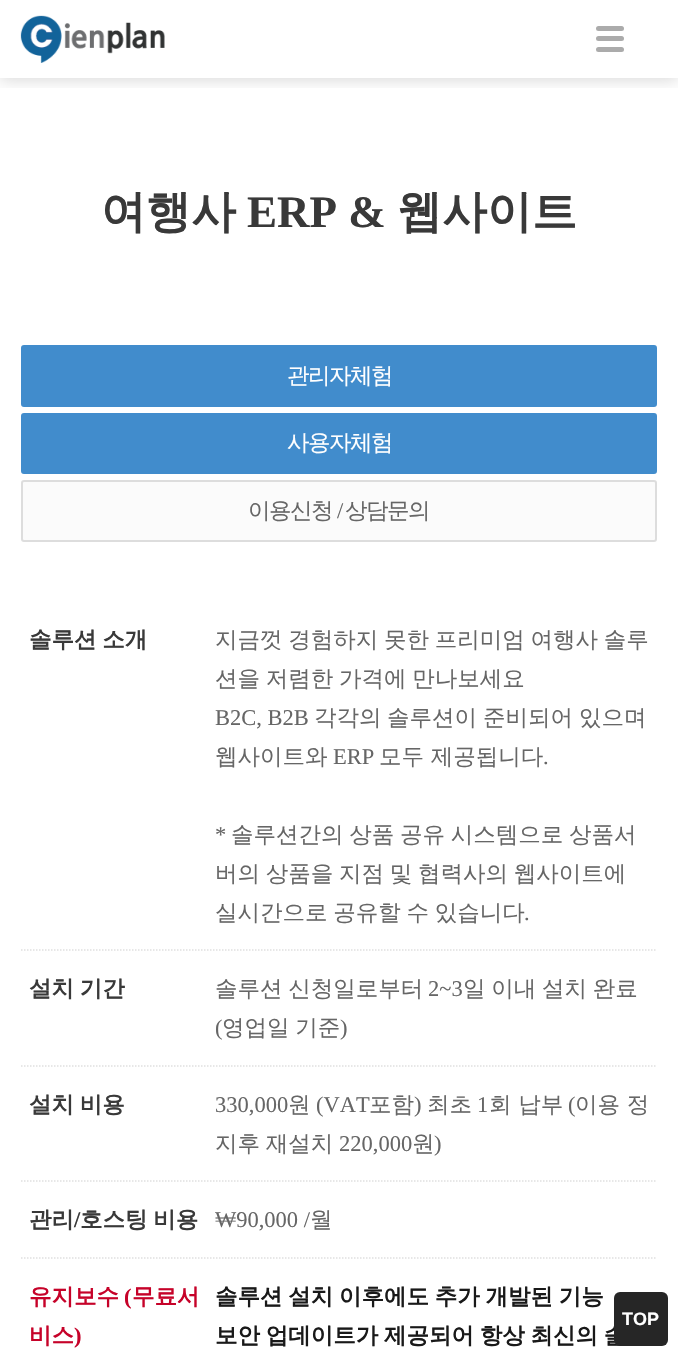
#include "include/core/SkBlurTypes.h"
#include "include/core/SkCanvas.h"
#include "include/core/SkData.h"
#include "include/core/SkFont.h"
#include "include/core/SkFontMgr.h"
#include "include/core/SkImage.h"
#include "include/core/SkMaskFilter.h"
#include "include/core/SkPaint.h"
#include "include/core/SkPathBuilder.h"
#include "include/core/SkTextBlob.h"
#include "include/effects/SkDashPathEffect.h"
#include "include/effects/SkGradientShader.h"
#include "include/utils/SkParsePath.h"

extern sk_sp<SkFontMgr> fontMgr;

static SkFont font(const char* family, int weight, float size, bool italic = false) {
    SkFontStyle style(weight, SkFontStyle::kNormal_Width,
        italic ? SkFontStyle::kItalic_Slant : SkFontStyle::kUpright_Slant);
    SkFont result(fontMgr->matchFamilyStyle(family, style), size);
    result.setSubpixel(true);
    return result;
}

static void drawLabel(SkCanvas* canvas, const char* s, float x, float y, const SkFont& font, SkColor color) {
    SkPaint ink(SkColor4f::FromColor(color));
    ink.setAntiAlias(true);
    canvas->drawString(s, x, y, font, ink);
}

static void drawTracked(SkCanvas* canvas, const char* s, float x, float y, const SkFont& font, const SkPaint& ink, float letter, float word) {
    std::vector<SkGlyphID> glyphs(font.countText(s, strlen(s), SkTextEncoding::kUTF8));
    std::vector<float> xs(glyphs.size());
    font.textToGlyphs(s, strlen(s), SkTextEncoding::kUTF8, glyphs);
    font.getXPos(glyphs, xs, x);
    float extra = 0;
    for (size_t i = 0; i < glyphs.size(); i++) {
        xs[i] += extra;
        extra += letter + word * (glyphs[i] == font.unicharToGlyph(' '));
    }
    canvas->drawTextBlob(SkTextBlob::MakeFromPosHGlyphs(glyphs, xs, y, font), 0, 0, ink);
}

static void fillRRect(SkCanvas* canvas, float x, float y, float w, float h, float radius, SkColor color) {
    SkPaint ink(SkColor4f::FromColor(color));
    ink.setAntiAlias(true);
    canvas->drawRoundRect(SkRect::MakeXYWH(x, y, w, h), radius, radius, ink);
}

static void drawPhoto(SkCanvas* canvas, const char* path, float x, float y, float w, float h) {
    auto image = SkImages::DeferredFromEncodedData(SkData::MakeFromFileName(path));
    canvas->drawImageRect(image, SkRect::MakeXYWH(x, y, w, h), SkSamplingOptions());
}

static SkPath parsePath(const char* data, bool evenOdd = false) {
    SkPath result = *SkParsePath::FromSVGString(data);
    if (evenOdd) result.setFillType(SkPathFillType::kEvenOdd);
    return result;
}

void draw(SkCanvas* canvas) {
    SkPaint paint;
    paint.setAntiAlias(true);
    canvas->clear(0xFFFFFFFF);
    canvas->save();
    canvas->clipRect(SkRect::MakeXYWH(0, 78, 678, 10));
    paint.setColor(0x26000000);
    paint.setMaskFilter(SkMaskFilter::MakeBlur(kNormal_SkBlurStyle, 7.5f));
    canvas->drawRect(SkRect::MakeXYWH(0, 2, 678, 78), paint);
    paint.setMaskFilter(nullptr);
    canvas->restore();
    drawPhoto(canvas, "assets/img1.png", 20, 15, 145, 48);
    fillRRect(canvas, 596, 26, 28, 5, 2.5f, 0xFFABABAB);
    fillRRect(canvas, 596, 36, 28, 5, 2.5f, 0xFFABABAB);
    fillRRect(canvas, 596, 47, 28, 5, 2.5f, 0xFFABABAB);
    SkFont font1 = font("WenQuanYi Zen Hei", 700, 45);
    drawLabel(canvas, "여행사", 101, 227, font1, 0xFF393939);
    SkFont font2 = font("Liberation Serif", 700, 45);
    drawLabel(canvas, "ERP &", 247, 227, font2, 0xFF393939);
    drawLabel(canvas, "웹사이트", 397, 227, font1, 0xFF393939);
    paint.setColor(0xFF418CCC);
    canvas->drawRoundRect(SkRect::MakeXYWH(22, 346, 634, 60), 2, 2, paint);
    paint.setStroke(true);
    paint.setStrokeWidth(2);
    canvas->drawRoundRect(SkRect::MakeXYWH(22, 346, 634, 60), 2, 2, paint);
    SkFont font3 = font("WenQuanYi Zen Hei", 500, 22.5f);
    paint.setStroke(false);
    paint.setColor(0xFFFFFFFF);
    drawTracked(canvas, "관리자체험", 287, 383, font3, paint, -1.5f, 0);
    paint.setColor(0xFF418CCC);
    canvas->drawRoundRect(SkRect::MakeXYWH(22, 414, 634, 59), 2, 2, paint);
    paint.setStroke(true);
    canvas->drawRoundRect(SkRect::MakeXYWH(22, 414, 634, 59), 2, 2, paint);
    paint.setStroke(false);
    paint.setColor(0xFFFFFFFF);
    drawTracked(canvas, "사용자체험", 287, 450, font3, paint, -1.5f, 0);
    paint.setColor(0xFFFBFBFB);
    canvas->drawRoundRect(SkRect::MakeXYWH(22, 481, 634, 60), 2, 2, paint);
    paint.setStroke(true);
    paint.setColor(0xFFDDDDDD);
    canvas->drawRoundRect(SkRect::MakeXYWH(22, 481, 634, 60), 2, 2, paint);
    paint.setStroke(false);
    paint.setColor(0xFF666666);
    drawTracked(canvas, "이용신청", 248, 518, font3, paint, -1.5f, 0);
    SkFont font4 = font("Liberation Serif", 400, 22.5f);
    drawTracked(canvas, "/", 337, 518, font4, paint, -1.5f, 0);
    drawTracked(canvas, "상담문의", 345, 518, font3, paint, -1.5f, 0);
    paint.setStroke(true);
    paint.setStrokeWidth(1.5f);
    paint.setColor(0xFFDFDFDF);
    paint.setPathEffect(SkDashPathEffect::Make({{1.5f, 1.5f}}, 0));
    canvas->drawPath(parsePath("M21 950H657"), paint);
    paint.setPathEffect(nullptr);
    SkFont font5 = font("WenQuanYi Zen Hei", 700, 22.5f);
    paint.setStroke(false);
    paint.setColor(0xFF393939);
    drawTracked(canvas, "솔루션 소개", 29, 647, font5, paint, 0, -1);
    paint.setColor(0xFF666666);
    drawTracked(canvas, "지금껏 경험하지 못한 프리미엄 여행사 솔루", 215, 647, font3, paint, 0, -1);
    drawTracked(canvas, "션을 저렴한 가격에 만나보세요", 215, 686, font3, paint, 0, -1);
    drawLabel(canvas, "B2C, B2B", 215, 725, font4, 0xFF666666);
    drawLabel(canvas, "각각의", 314, 725, font3, 0xFF666666);
    drawLabel(canvas, "솔루션이", 387, 725, font3, 0xFF666666);
    drawLabel(canvas, "준비되어", 483, 725, font3, 0xFF666666);
    drawLabel(canvas, "있으며", 579, 725, font3, 0xFF666666);
    drawLabel(canvas, "웹사이트와", 215, 764, font3, 0xFF666666);
    drawLabel(canvas, "ERP", 333, 764, font4, 0xFF666666);
    drawLabel(canvas, "모두 제공됩니다", 379, 764, font3, 0xFF666666);
    drawLabel(canvas, ".", 543, 764, font4, 0xFF666666);
    drawLabel(canvas, "*", 215, 842, font4, 0xFF666666);
    drawTracked(canvas, "솔루션간의 상품 공유 시스템으로 상품서", 231, 842, font3, paint, 0, -1);
    drawTracked(canvas, "버의 상품을 지점 및 협력사의 웹사이트에", 215, 881, font3, paint, 0, -1);
    drawTracked(canvas, "실시간으로 공유할 수 있습니다", 215, 920, font3, paint, 0, -1);
    drawLabel(canvas, ".", 524, 920, font4, 0xFF666666);
    paint.setStroke(true);
    paint.setColor(0xFFDFDFDF);
    paint.setPathEffect(SkDashPathEffect::Make({{1.5f, 1.5f}}, 0));
    canvas->drawPath(parsePath("M21 1066H657"), paint);
    paint.setPathEffect(nullptr);
    paint.setStroke(false);
    paint.setColor(0xFF393939);
    drawTracked(canvas, "설치 기간", 29, 996, font5, paint, 0, -1);
    paint.setColor(0xFF666666);
    drawTracked(canvas, "솔루션 신청일로부터", 215, 996, font3, paint, 0, -1);
    drawLabel(canvas, "2~3", 428, 996, font4, 0xFF666666);
    drawTracked(canvas, "일 이내 설치 완료", 463, 996, font3, paint, 0, -1);
    drawLabel(canvas, "(", 215, 1035, font4, 0xFF666666);
    drawTracked(canvas, "영업일 기준", 222, 1035, font3, paint, 0, -1);
    drawLabel(canvas, ")", 340, 1035, font4, 0xFF666666);
    paint.setStroke(true);
    paint.setColor(0xFFDFDFDF);
    paint.setPathEffect(SkDashPathEffect::Make({{1.5f, 1.5f}}, 0));
    canvas->drawPath(parsePath("M21 1181H657"), paint);
    paint.setPathEffect(nullptr);
    paint.setStroke(false);
    paint.setColor(0xFF393939);
    drawTracked(canvas, "설치 비용", 29, 1112, font5, paint, 0, -1);
    drawLabel(canvas, "330,000", 215, 1112, font4, 0xFF666666);
    drawLabel(canvas, "원", 288, 1112, font3, 0xFF666666);
    drawLabel(canvas, "(VAT", 316, 1112, font4, 0xFF666666);
    drawLabel(canvas, "포함", 369, 1112, font3, 0xFF666666);
    drawLabel(canvas, ")", 414, 1112, font4, 0xFF666666);
    drawLabel(canvas, "최초", 427, 1112, font3, 0xFF666666);
    drawLabel(canvas, "1", 477, 1112, font4, 0xFF666666);
    drawLabel(canvas, "회 납부", 489, 1112, font3, 0xFF666666);
    drawLabel(canvas, "(", 568, 1112, font4, 0xFF666666);
    drawLabel(canvas, "이용 정", 575, 1112, font3, 0xFF666666);
    paint.setColor(0xFF666666);
    drawTracked(canvas, "지후 재설치", 215, 1151, font3, paint, 0, -1);
    drawLabel(canvas, "220,000", 339, 1151, font4, 0xFF666666);
    drawLabel(canvas, "원", 412, 1151, font3, 0xFF666666);
    drawLabel(canvas, ")", 434, 1151, font4, 0xFF666666);
    paint.setStroke(true);
    paint.setColor(0xFFDFDFDF);
    paint.setPathEffect(SkDashPathEffect::Make({{1.5f, 1.5f}}, 0));
    canvas->drawPath(parsePath("M21 1258H657"), paint);
    paint.setPathEffect(nullptr);
    drawLabel(canvas, "관리", 29, 1227, font5, 0xFF393939);
    SkFont font6 = font("Liberation Serif", 700, 22.5f);
    drawLabel(canvas, "/", 74, 1227, font6, 0xFF393939);
    paint.setStroke(false);
    paint.setColor(0xFF393939);
    drawTracked(canvas, "호스팅 비용", 80, 1227, font5, paint, 0, -1);
    drawLabel(canvas, "₩90,000 /", 215, 1227, font4, 0xFF666666);
    drawLabel(canvas, "월", 310, 1227, font3, 0xFF666666);
    drawLabel(canvas, "유지보수", 29, 1304, font5, 0xFFC60229);
    drawLabel(canvas, "(", 124, 1304, font6, 0xFFC60229);
    drawLabel(canvas, "무료서", 132, 1304, font5, 0xFFC60229);
    drawLabel(canvas, "비스", 29, 1343, font5, 0xFFC60229);
    drawLabel(canvas, ")", 74, 1343, font6, 0xFFC60229);
    paint.setColor(0xFF191919);
    drawTracked(canvas, "솔루션 설치 이후에도 추가 개발된 기능", 215, 1304, font5, paint, 0, -1);
    drawTracked(canvas, "보안 업데이트가 제공되어 항상 최신의 솔", 215, 1343, font5, paint, 0, -1);
    fillRRect(canvas, 614, 1292, 54, 54, 6, 0xFF262626);
    SkFont font7 = font("Liberation Sans", 700, 18);
    drawLabel(canvas, "TOP", 622, 1325, font7, 0xFFFFFFFF);
}
